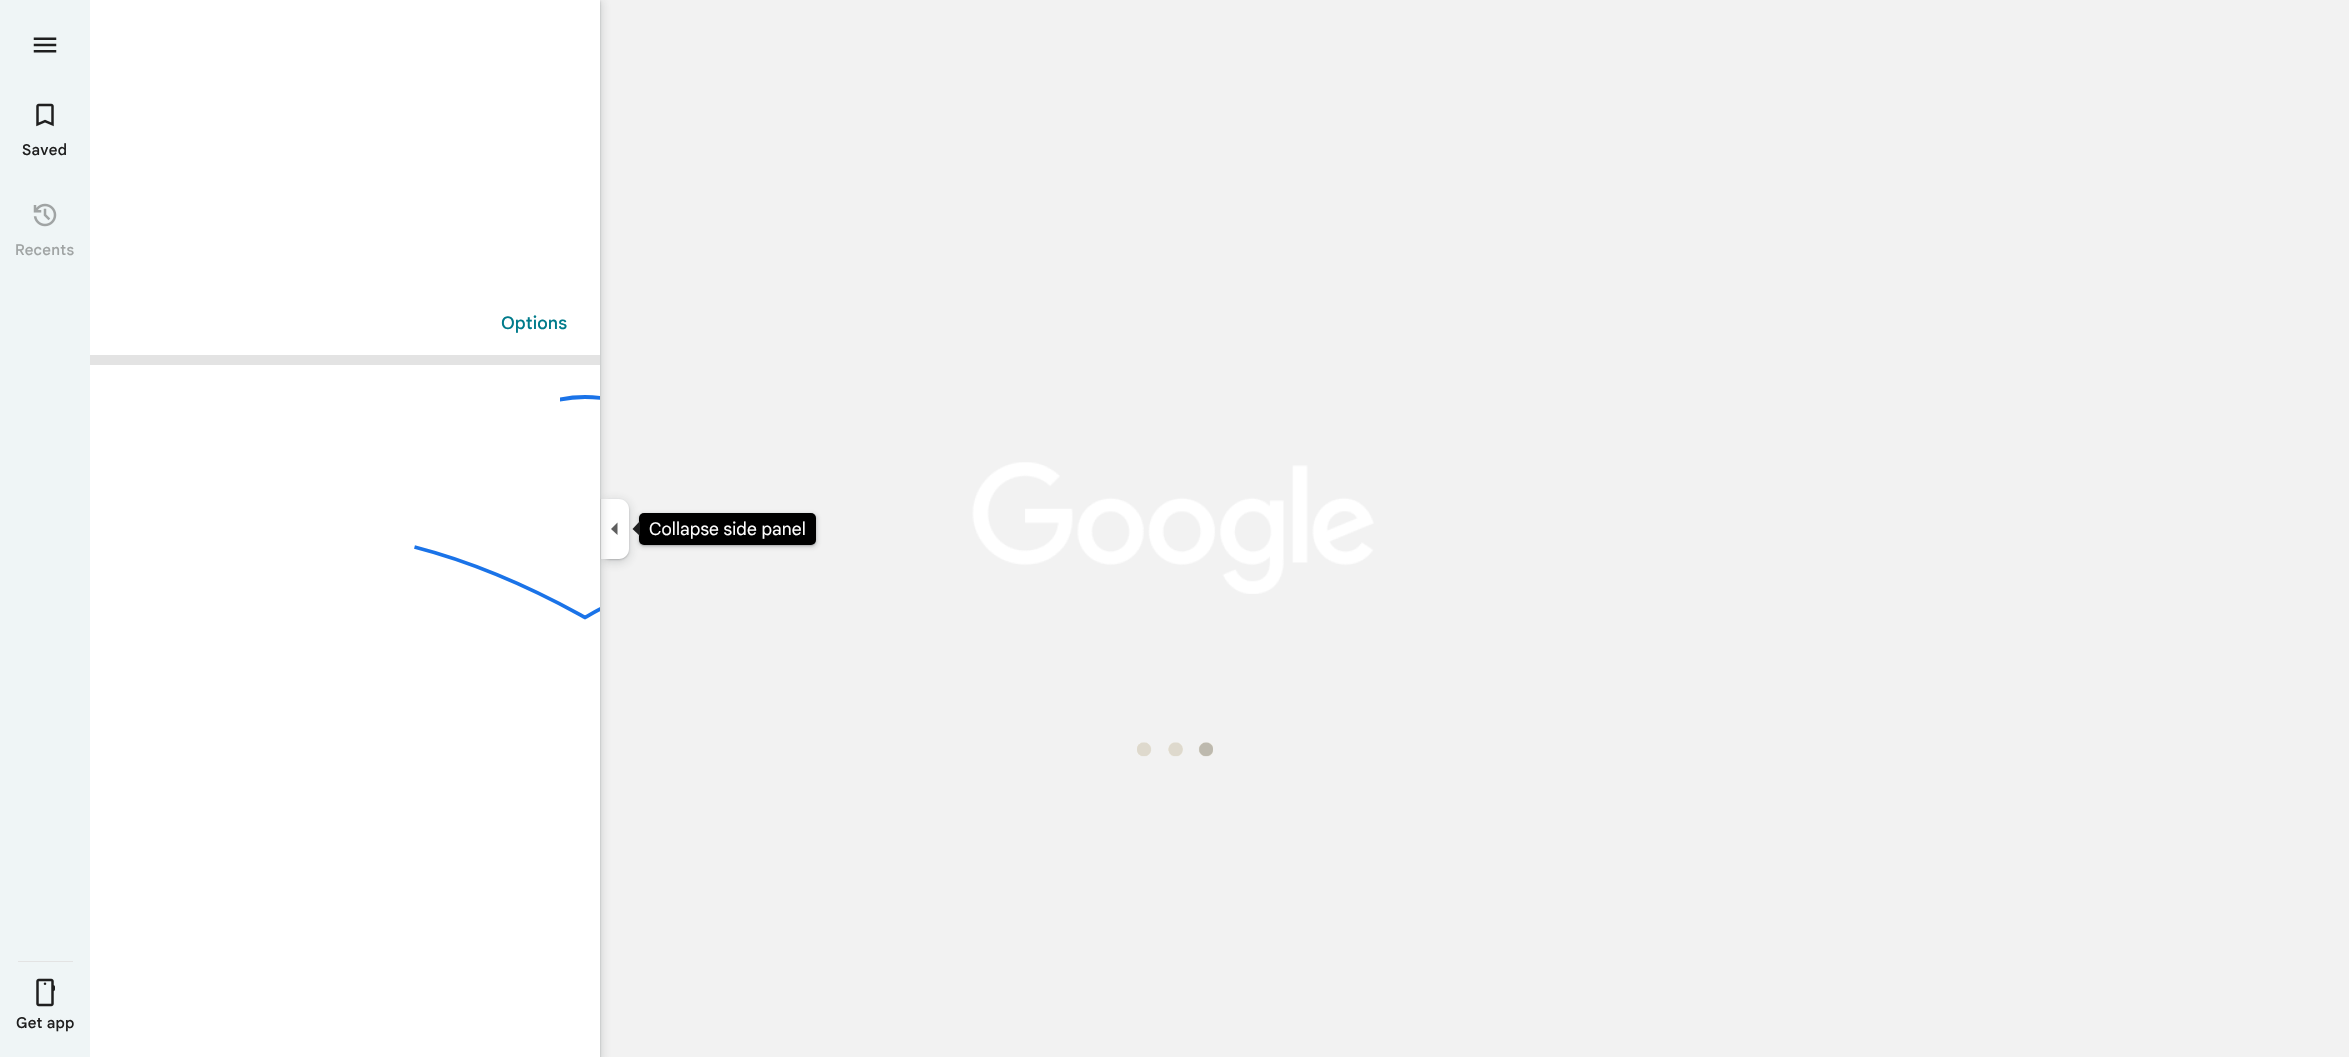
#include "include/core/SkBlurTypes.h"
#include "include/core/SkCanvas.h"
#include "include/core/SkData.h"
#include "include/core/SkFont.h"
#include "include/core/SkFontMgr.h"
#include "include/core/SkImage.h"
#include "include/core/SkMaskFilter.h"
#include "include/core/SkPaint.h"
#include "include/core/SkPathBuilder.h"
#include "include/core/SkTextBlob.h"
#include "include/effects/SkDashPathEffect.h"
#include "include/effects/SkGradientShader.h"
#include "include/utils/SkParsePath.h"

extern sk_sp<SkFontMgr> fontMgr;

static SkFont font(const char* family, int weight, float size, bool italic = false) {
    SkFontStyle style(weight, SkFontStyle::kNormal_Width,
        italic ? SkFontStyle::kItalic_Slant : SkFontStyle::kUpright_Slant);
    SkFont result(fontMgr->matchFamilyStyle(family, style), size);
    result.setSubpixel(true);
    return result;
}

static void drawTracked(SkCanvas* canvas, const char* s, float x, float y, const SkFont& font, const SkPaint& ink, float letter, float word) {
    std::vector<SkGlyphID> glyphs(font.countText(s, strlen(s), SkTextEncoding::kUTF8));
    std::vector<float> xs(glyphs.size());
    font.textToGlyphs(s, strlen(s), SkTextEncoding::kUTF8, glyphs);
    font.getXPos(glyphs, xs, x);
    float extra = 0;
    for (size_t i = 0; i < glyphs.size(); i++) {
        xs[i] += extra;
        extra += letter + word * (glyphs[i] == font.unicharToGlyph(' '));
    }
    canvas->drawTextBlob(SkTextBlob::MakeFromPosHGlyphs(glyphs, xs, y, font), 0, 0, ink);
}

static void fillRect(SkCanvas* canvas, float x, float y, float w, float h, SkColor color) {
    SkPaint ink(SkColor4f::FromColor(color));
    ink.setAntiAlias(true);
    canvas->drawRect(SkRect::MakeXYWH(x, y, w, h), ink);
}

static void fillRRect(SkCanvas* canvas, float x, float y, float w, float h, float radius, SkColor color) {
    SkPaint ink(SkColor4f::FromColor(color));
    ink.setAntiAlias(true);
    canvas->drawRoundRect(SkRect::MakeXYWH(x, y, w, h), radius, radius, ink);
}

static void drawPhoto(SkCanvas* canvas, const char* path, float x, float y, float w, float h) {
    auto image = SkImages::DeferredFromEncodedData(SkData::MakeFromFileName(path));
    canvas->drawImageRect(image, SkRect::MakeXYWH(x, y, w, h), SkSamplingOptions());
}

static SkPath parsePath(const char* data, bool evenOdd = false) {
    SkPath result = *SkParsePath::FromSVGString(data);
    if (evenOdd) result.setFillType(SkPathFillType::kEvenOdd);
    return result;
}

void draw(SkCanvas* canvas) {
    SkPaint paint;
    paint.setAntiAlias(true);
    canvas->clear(0xFFF2F2F2);
    paint.setColor(0x263C4043);
    paint.setMaskFilter(SkMaskFilter::MakeBlur(kNormal_SkBlurStyle, 4));
    canvas->drawRoundRect(SkRect::MakeXYWH(598, 499, 33, 65), 13, 13, paint);
    paint.setMaskFilter(nullptr);
    paint.setColor(0x4D3C4043);
    paint.setMaskFilter(SkMaskFilter::MakeBlur(kNormal_SkBlurStyle, 1));
    canvas->drawRoundRect(SkRect::MakeXYWH(600, 500, 29, 60), 10, 10, paint);
    paint.setMaskFilter(nullptr);
    paint.setColor(0xFFFFFFFF);
    canvas->drawPath(parsePath("M600 499H619C624.5 499 629 503.5 629 509V549C629 554.5 624.5 559 619 559H600Z"), paint);
    fillRect(canvas, 600, 499, 1, 60, 0xFFE3E3E3);
    paint.setColor(0xFF5E5E5E);
    canvas->drawPath(parsePath("M617.5 535L611 529L617.5 522.5Z"), paint);
    paint.setColor(0x263C4043);
    paint.setMaskFilter(SkMaskFilter::MakeBlur(kNormal_SkBlurStyle, 4));
    canvas->drawRect(SkRect::MakeXYWH(88, 0, 515, 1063), paint);
    paint.setMaskFilter(nullptr);
    paint.setColor(0x4D3C4043);
    paint.setMaskFilter(SkMaskFilter::MakeBlur(kNormal_SkBlurStyle, 1));
    canvas->drawRect(SkRect::MakeXYWH(90, 1, 510, 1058), paint);
    paint.setMaskFilter(nullptr);
    fillRect(canvas, 0, 0, 90, 1057, 0xFFEFF5F6);
    drawPhoto(canvas, "assets/img1.png", 33, 37, 24, 16);
    drawPhoto(canvas, "assets/img2.png", 36, 103, 18, 24);
    SkFont font1 = font("Google Sans", 500, 15);
    paint.setColor(0xFF1F1F1F);
    drawTracked(canvas, "Saved", 22, 155, font1, paint, 0.25f, 0);
    drawPhoto(canvas, "assets/img3.png", 33, 203, 24, 24);
    paint.setColor(0xFFA0A4A4);
    drawTracked(canvas, "Recents", 15, 255, font1, paint, 0.25f, 0);
    fillRect(canvas, 18, 961, 55, 1, 0xFFE3E3E3);
    drawPhoto(canvas, "assets/img4.png", 36, 978, 19, 29);
    paint.setColor(0xFF1F1F1F);
    drawTracked(canvas, "Get app", 16, 1028, font1, paint, 0.25f, 0);
    fillRect(canvas, 90, 0, 510, 1057, 0xFFFFFFFF);
    fillRect(canvas, 90, 355, 510, 10, 0xFFE3E3E3);
    SkFont font2 = font("Google Sans", 500, 17.5f);
    paint.setColor(0xFF007B8B);
    drawTracked(canvas, "Options", 501, 329, font2, paint, 0.1f, 0);
    canvas->save();
    canvas->clipRect(SkRect::MakeXYWH(560, 395, 40, 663));
    paint.setStroke(true);
    paint.setStrokeWidth(3.8f);
    paint.setColor(0xFF1A73E8);
    canvas->drawPath(parsePath("M406 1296.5C358.5 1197.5 332 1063.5 332 924C332 784 358.5 650 406 551C453.5 452.5 518 397 585 397C652 397 716.5 452.5 764 551C811.5 650 838 784 838 923.5C838 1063.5 811.5 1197.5 764 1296.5"), paint);
    canvas->restore();
    canvas->save();
    canvas->clipRect(SkRect::MakeXYWH(330, 395, 255, 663));
    paint.setStrokeWidth(3.7f);
    canvas->drawPath(parsePath("M414.5 547C521 574.5 640.5 640 747.5 730C854.5 819.5 940.5 926 985.5 1026C1030.5 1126 1032 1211 988.5 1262.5C945.5 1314 861.5 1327.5 755.5 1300.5"), paint);
    canvas->restore();
    canvas->save();
    canvas->clipRect(SkRect::MakeXYWH(585, 395, 15, 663));
    canvas->drawPath(parsePath("M414.5 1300.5C308.5 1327.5 224.5 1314 181.5 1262.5C138 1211 139.5 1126 184.5 1026C229.5 926 315.5 819.5 422.5 730C529.5 640 649 574.5 755.5 547"), paint);
    canvas->restore();
    paint.setStroke(false);
    paint.setColor(0x263C4043);
    paint.setMaskFilter(SkMaskFilter::MakeBlur(kNormal_SkBlurStyle, 2));
    canvas->drawRoundRect(SkRect::MakeXYWH(638, 513, 180, 35), 6, 6, paint);
    paint.setMaskFilter(nullptr);
    paint.setColor(0x4D3C4043);
    paint.setMaskFilter(SkMaskFilter::MakeBlur(kNormal_SkBlurStyle, 1));
    canvas->drawRoundRect(SkRect::MakeXYWH(639, 514, 177, 32), 5, 5, paint);
    paint.setMaskFilter(nullptr);
    fillRRect(canvas, 639, 513, 177, 32, 5, 0xFF000000);
    paint.setColor(0xFF1F1F1F);
    canvas->drawPath(parsePath("M640 521V536L632.5 529Z"), paint);
    SkFont font3 = font("Google Sans", 400, 17.5f);
    paint.setColor(0xFFFFFFFF);
    drawTracked(canvas, "Collapse side panel", 649, 535, font3, paint, 0.1f, 0);
    drawPhoto(canvas, "assets/img5.png", 972, 462, 402, 132);
    drawPhoto(canvas, "assets/img6.png", 1137, 742, 76, 15);
}
